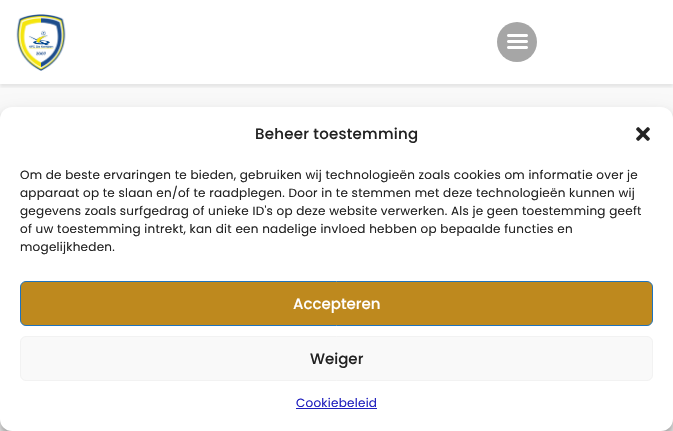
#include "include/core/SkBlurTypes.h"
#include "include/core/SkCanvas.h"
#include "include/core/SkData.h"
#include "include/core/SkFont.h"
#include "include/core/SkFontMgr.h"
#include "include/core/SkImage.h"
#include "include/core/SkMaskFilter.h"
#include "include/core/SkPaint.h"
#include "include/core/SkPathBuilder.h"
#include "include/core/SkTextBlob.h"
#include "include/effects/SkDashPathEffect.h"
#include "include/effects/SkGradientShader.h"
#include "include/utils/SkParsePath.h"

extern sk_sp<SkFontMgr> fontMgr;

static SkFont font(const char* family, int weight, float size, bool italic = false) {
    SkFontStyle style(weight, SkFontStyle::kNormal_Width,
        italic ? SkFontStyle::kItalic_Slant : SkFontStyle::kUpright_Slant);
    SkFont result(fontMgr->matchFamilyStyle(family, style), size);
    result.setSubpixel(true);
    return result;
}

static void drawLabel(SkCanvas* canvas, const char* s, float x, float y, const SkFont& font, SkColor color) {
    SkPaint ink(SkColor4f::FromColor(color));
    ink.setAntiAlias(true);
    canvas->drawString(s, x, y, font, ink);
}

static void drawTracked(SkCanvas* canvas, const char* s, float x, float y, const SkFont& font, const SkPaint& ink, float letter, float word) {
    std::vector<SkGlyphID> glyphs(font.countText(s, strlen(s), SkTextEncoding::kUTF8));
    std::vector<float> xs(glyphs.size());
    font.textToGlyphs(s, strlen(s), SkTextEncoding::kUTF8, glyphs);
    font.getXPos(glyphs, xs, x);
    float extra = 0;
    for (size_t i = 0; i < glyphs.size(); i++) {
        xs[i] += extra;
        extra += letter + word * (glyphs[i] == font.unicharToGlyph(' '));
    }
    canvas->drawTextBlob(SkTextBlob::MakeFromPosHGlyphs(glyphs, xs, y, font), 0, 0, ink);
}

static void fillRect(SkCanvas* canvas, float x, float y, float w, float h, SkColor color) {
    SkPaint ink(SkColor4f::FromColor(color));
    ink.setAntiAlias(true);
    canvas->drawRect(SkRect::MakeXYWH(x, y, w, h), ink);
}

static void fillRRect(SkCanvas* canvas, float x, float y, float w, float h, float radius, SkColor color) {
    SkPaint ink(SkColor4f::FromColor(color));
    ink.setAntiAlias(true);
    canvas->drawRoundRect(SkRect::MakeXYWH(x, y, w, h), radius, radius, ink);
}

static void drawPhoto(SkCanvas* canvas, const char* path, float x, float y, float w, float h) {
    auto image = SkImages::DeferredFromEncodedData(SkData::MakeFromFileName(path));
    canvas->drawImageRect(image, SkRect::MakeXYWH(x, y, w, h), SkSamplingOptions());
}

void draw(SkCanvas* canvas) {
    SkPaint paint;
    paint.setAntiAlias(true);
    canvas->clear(0xFFF9F9F9);
    fillRect(canvas, 0, 0, 673, 84, 0xFFFFFFFF);
    canvas->save();
    canvas->clipRect(SkRect::MakeXYWH(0, 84, 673, 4));
    paint.setColor(0x14000000);
    paint.setMaskFilter(SkMaskFilter::MakeBlur(kNormal_SkBlurStyle, 1.5f));
    canvas->drawRect(SkRect::MakeXYWH(0, 3, 673, 84), paint);
    paint.setMaskFilter(nullptr);
    canvas->restore();
    drawPhoto(canvas, "assets/img1.png", 16, 14, 50, 57);
    paint.setColor(0xFFA6A6A6);
    canvas->drawCircle(517, 42, 20, paint);
    drawPhoto(canvas, "assets/img2.png", 507, 34, 21, 15);
    paint.setColor(0x3B000000);
    paint.setMaskFilter(SkMaskFilter::MakeBlur(kNormal_SkBlurStyle, 3));
    canvas->drawRoundRect(SkRect::MakeXYWH(0, 113, 673, 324), 12, 12, paint);
    paint.setMaskFilter(nullptr);
    paint.setColor(0x30000000);
    paint.setMaskFilter(SkMaskFilter::MakeBlur(kNormal_SkBlurStyle, 10));
    canvas->drawRoundRect(SkRect::MakeXYWH(0, 117, 673, 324), 12, 12, paint);
    paint.setMaskFilter(nullptr);
    fillRRect(canvas, 0, 107, 673, 324, 12, 0xFFFFFFFF);
    SkFont font1 = font("Poppins", 500, 15);
    paint.setColor(0xFF222222);
    drawTracked(canvas, "Beheer toestemming", 255, 139, font1, paint, 0.25f, 0);
    drawPhoto(canvas, "assets/img3.png", 636, 127, 14, 14);
    SkFont font2 = font("Poppins", 400, 12);
    drawTracked(canvas, "Om de beste ervaringen te bieden, gebruiken wij technologieën zoals cookies om informatie over je", 20, 179, font2, paint, 0.25f, 0);
    drawTracked(canvas, "apparaat op te slaan en/of te raadplegen. Door in te stemmen met deze technologieën kunnen wij", 20, 197, font2, paint, 0.25f, 0);
    drawTracked(canvas, "gegevens zoals surfgedrag of unieke ID's op deze website verwerken. Als je geen toestemming geeft", 20, 215, font2, paint, 0.25f, 0);
    drawTracked(canvas, "of uw toestemming intrekt, kan dit een nadelige invloed hebben op bepaalde functies en", 20, 233, font2, paint, 0.25f, 0);
    drawTracked(canvas, "mogelijkheden.", 20, 251, font2, paint, 0.25f, 0);
    paint.setColor(0xFFBE891E);
    canvas->drawRoundRect(SkRect::MakeXYWH(20.5f, 281.5f, 632, 44), 5.5f, 5.5f, paint);
    paint.setStroke(true);
    paint.setStrokeWidth(1);
    paint.setColor(0xFF1E73BE);
    canvas->drawRoundRect(SkRect::MakeXYWH(20.5f, 281.5f, 632, 44), 5.5f, 5.5f, paint);
    drawLabel(canvas, "Accepteren", 293, 309, font1, 0xFFFFFFFF);
    paint.setStroke(false);
    paint.setColor(0xFFF9F9F9);
    canvas->drawRoundRect(SkRect::MakeXYWH(20.5f, 336.5f, 632, 44), 5.5f, 5.5f, paint);
    paint.setStroke(true);
    paint.setColor(0xFFF2F2F2);
    canvas->drawRoundRect(SkRect::MakeXYWH(20.5f, 336.5f, 632, 44), 5.5f, 5.5f, paint);
    drawLabel(canvas, "Weiger", 310, 364, font1, 0xFF222222);
    paint.setStroke(false);
    paint.setColor(0xFF1E1EBE);
    drawTracked(canvas, "Cookiebeleid", 296, 407, font2, paint, 0.25f, 0);
    fillRect(canvas, 296, 408, 81, 1, 0xFF1E1EBE);
}
